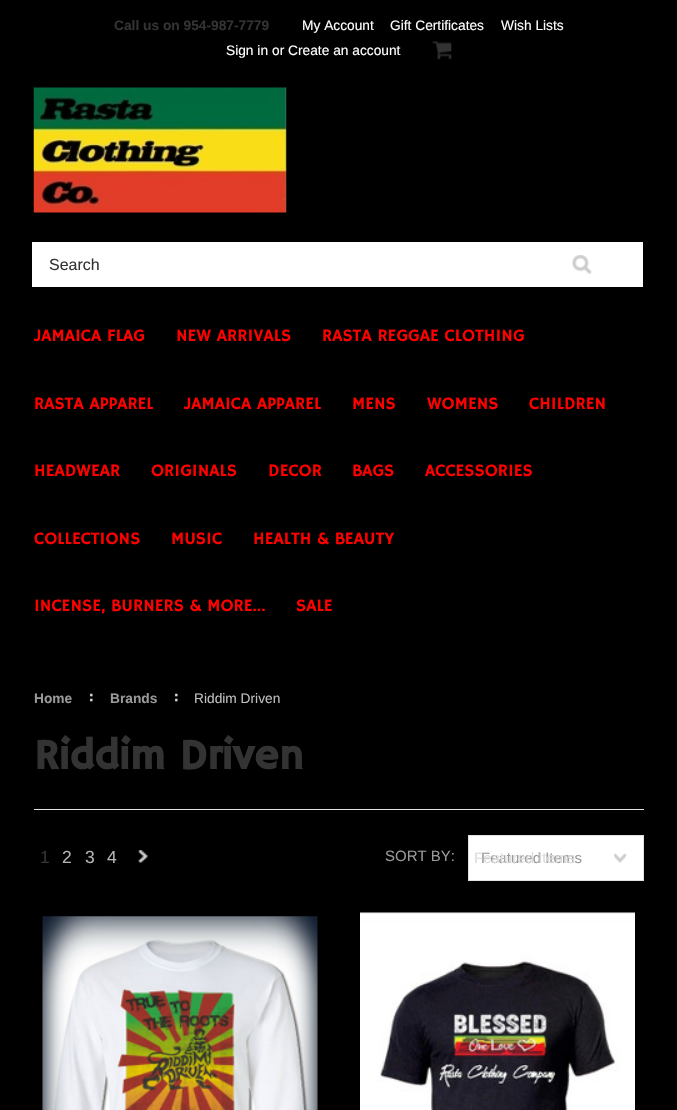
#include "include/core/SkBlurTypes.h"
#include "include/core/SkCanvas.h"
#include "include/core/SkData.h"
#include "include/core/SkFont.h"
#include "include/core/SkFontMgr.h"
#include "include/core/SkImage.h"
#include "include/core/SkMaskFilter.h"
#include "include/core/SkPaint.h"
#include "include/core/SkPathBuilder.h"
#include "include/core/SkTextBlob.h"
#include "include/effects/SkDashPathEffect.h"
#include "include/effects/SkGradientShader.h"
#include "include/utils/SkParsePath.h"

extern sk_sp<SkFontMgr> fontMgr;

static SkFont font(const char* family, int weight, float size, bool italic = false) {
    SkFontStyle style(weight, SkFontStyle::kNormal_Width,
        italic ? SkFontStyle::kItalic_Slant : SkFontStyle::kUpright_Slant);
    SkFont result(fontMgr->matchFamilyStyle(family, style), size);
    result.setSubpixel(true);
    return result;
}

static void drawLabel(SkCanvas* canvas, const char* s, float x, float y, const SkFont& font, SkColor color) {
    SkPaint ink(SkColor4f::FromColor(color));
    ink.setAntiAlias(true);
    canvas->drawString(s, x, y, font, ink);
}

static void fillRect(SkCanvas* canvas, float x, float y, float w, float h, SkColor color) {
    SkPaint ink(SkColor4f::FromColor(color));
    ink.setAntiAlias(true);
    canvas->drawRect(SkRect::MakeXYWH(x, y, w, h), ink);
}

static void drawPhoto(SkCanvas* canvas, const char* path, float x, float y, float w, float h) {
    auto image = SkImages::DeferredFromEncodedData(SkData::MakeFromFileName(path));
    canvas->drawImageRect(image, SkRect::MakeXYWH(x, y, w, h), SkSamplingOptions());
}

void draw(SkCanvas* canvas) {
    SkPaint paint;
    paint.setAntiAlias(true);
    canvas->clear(0xFF000000);
    SkFont font1 = font("Liberation Sans", 700, 13.75f);
    drawLabel(canvas, "Call us on 954-987-7779", 114, 30, font1, 0xFF333333);
    SkFont font2 = font("Liberation Sans", 400, 13.75f);
    drawLabel(canvas, "My Account", 302, 30, font2, 0xFFFFFFFF);
    drawLabel(canvas, "Gift Certificates", 390, 30, font2, 0xFFFFFFFF);
    drawLabel(canvas, "Wish Lists", 501, 30, font2, 0xFFFFFFFF);
    drawLabel(canvas, "Sign in", 226, 55, font2, 0xFFFFFFFF);
    drawLabel(canvas, "or Create an account", 272, 55, font2, 0xFFFFFFFF);
    drawPhoto(canvas, "assets/img1.png", 432, 41, 20, 19);
    drawPhoto(canvas, "assets/img2.png", 33, 87, 254, 126);
    fillRect(canvas, 32, 242, 611, 45, 0xFFFFFFFF);
    SkFont font3 = font("Liberation Sans", 400, 16);
    drawLabel(canvas, "Search", 49, 270, font3, 0xFF333333);
    drawPhoto(canvas, "assets/img3.png", 572, 255, 20, 19);
    SkFont font4 = font("Hammersmith One", 400, 17.5f);
    drawLabel(canvas, "JAMAICA FLAG", 34, 341, font4, 0xFFFF0000);
    drawLabel(canvas, "NEW ARRIVALS", 176, 341, font4, 0xFFFF0000);
    drawLabel(canvas, "RASTA REGGAE CLOTHING", 322, 341, font4, 0xFFFF0000);
    drawLabel(canvas, "RASTA APPAREL", 34, 409, font4, 0xFFFF0000);
    drawLabel(canvas, "JAMAICA APPAREL", 184, 409, font4, 0xFFFF0000);
    drawLabel(canvas, "MENS", 352, 409, font4, 0xFFFF0000);
    drawLabel(canvas, "WOMENS", 427, 409, font4, 0xFFFF0000);
    drawLabel(canvas, "CHILDREN", 529, 409, font4, 0xFFFF0000);
    drawLabel(canvas, "HEADWEAR", 34, 476, font4, 0xFFFF0000);
    drawLabel(canvas, "ORIGINALS", 151, 476, font4, 0xFFFF0000);
    drawLabel(canvas, "DECOR", 268, 476, font4, 0xFFFF0000);
    drawLabel(canvas, "BAGS", 352, 476, font4, 0xFFFF0000);
    drawLabel(canvas, "ACCESSORIES", 425, 476, font4, 0xFFFF0000);
    drawLabel(canvas, "COLLECTIONS", 34, 544, font4, 0xFFFF0000);
    drawLabel(canvas, "MUSIC", 171, 544, font4, 0xFFFF0000);
    drawLabel(canvas, "HEALTH & BEAUTY", 253, 544, font4, 0xFFFF0000);
    drawLabel(canvas, "INCENSE, BURNERS & MORE...", 34, 611, font4, 0xFFFF0000);
    drawLabel(canvas, "SALE", 296, 611, font4, 0xFFFF0000);
    drawPhoto(canvas, "assets/img4.png", 89, 693, 4, 9);
    drawLabel(canvas, "Home", 34, 703, font1, 0xFF999999);
    drawPhoto(canvas, "assets/img4.png", 174, 693, 4, 9);
    drawLabel(canvas, "Brands", 110, 703, font1, 0xFF999999);
    drawLabel(canvas, "Riddim Driven", 194, 703, font2, 0xFFBEBEBE);
    fillRect(canvas, 34, 809, 610, 1, 0xFFE3E3E3);
    SkFont font5 = font("Hammersmith One", 700, 42.5f);
    drawLabel(canvas, "Riddim Driven", 34, 769, font5, 0xFF333333);
    SkFont font6 = font("Liberation Sans", 400, 17.5f);
    drawLabel(canvas, "1", 40, 863, font6, 0xFF333333);
    drawLabel(canvas, "2", 62, 863, font6, 0xFFB4B4B4);
    drawLabel(canvas, "3", 85, 863, font6, 0xFFB4B4B4);
    drawLabel(canvas, "4", 107, 863, font6, 0xFFB4B4B4);
    drawPhoto(canvas, "assets/img5.png", 138, 850, 10, 13);
    SkFont font7 = font("Liberation Sans", 400, 15);
    drawLabel(canvas, "SORT BY:", 385, 861, font7, 0xFF999999);
    fillRect(canvas, 614, 836, 29, 44, 0xFFFFFFFF);
    drawPhoto(canvas, "assets/img6.png", 614, 853, 13, 10);
    paint.setStroke(true);
    paint.setStrokeWidth(1);
    paint.setColor(0xFFE3E3E3);
    canvas->drawRect(SkRect::MakeXYWH(468.5f, 835.5f, 175, 45), paint);
    fillRect(canvas, 469, 836, 145, 44, 0xFFFFFFFF);
    drawLabel(canvas, "Featured Items", 481, 863, font7, 0xFF999999);
    drawLabel(canvas, "Featured Items", 474, 863, font7, 0xFFDCDCDC);
    drawPhoto(canvas, "assets/img7.png", 42, 916, 276, 194);
    drawPhoto(canvas, "assets/img8.png", 360, 912, 275, 198);
}
